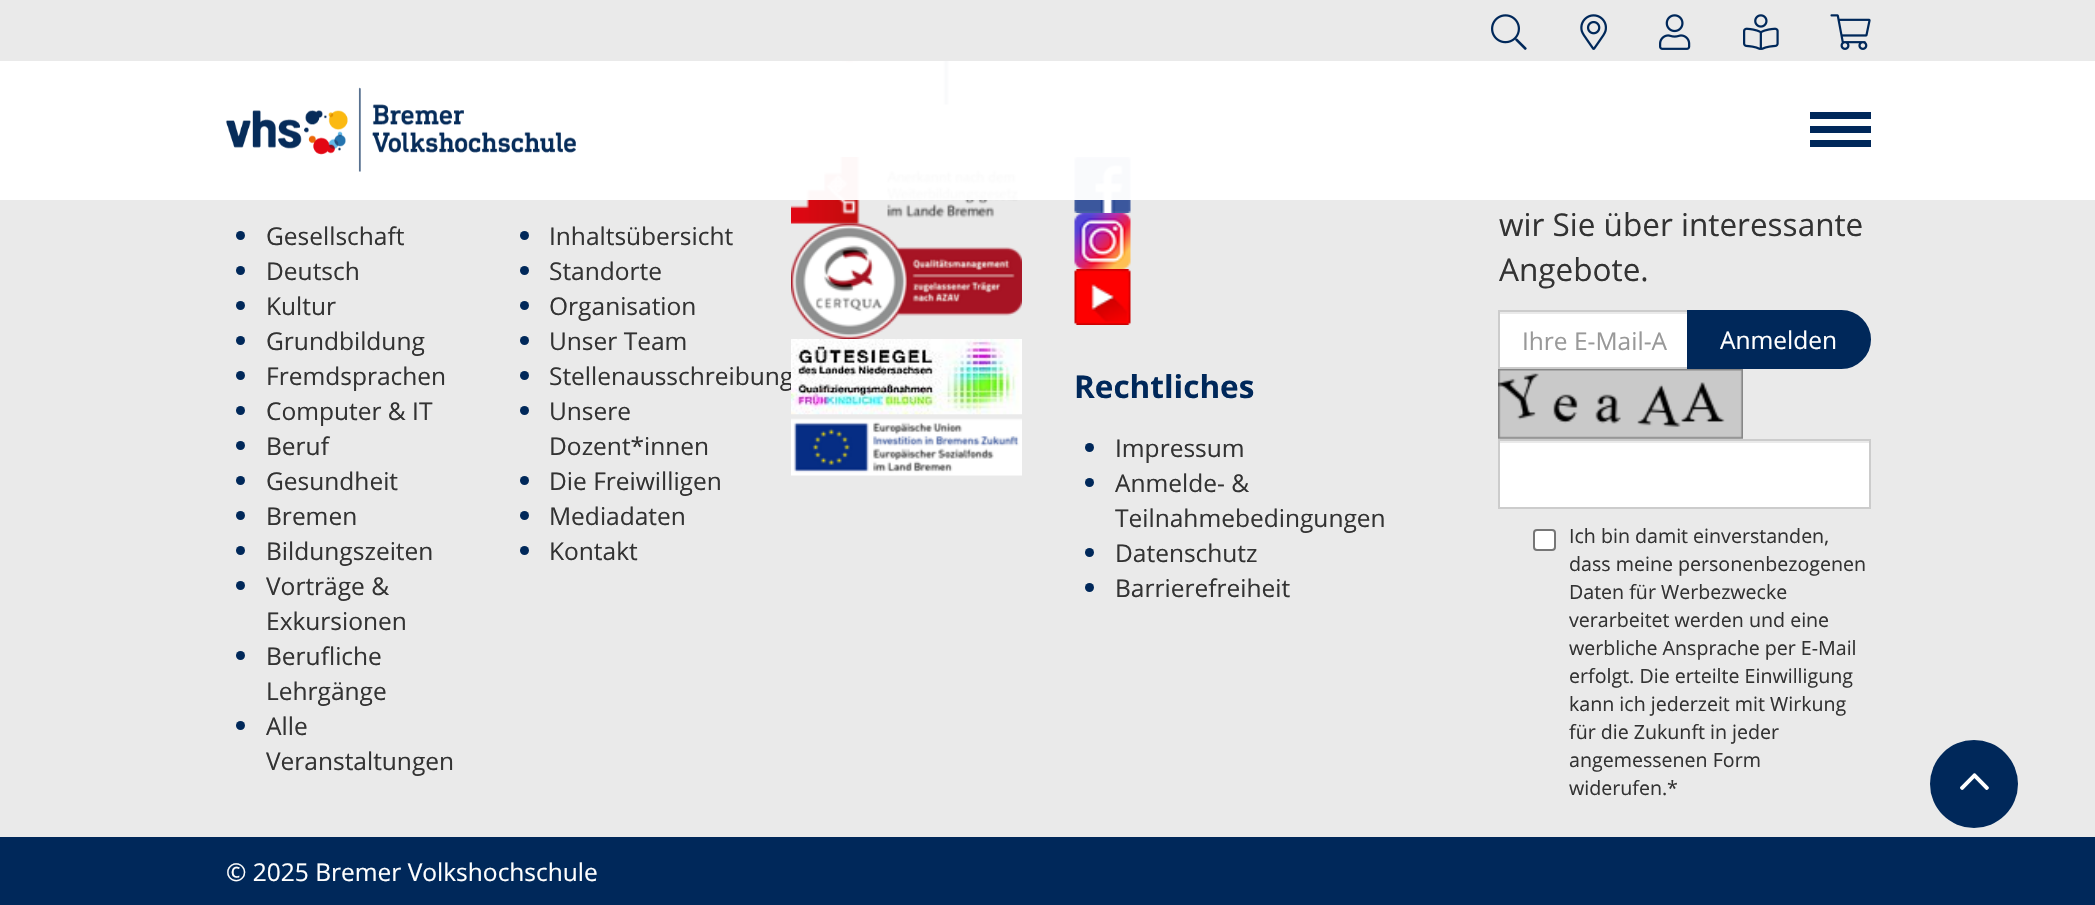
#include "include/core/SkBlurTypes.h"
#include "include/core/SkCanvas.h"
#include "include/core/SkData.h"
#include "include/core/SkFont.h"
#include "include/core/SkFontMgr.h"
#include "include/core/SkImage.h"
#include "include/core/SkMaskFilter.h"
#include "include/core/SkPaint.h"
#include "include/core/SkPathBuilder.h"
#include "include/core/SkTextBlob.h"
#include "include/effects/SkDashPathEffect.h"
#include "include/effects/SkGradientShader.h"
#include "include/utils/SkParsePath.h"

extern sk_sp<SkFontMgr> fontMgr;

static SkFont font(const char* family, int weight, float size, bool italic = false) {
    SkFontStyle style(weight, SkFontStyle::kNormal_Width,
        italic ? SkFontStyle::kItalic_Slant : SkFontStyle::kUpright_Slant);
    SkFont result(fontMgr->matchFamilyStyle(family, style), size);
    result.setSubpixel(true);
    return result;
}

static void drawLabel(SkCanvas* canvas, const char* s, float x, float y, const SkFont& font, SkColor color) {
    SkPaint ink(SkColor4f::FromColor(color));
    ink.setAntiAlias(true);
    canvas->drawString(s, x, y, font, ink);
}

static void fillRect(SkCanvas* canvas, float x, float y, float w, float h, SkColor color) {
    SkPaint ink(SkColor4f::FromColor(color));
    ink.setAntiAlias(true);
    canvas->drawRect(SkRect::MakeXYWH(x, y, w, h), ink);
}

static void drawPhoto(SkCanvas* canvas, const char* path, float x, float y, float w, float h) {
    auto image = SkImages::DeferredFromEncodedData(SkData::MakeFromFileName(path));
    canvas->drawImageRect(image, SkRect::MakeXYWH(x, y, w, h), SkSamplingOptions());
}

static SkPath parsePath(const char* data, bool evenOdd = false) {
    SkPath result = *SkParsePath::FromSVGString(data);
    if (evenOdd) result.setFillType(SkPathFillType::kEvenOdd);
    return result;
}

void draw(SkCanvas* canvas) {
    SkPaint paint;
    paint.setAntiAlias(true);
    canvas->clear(0xFFEAEAEA);
    drawPhoto(canvas, "assets/img1.png", 1491, 14, 36, 36);
    drawPhoto(canvas, "assets/img2.png", 1580, 14, 27, 36);
    drawPhoto(canvas, "assets/img3.png", 1659, 14, 32, 36);
    drawPhoto(canvas, "assets/img4.png", 1743, 14, 36, 36);
    drawPhoto(canvas, "assets/img5.png", 1830, 14, 41, 36);
    drawPhoto(canvas, "assets/img7.png", 841, 61, 108, 44);
    drawPhoto(canvas, "assets/img8.png", 791, 157, 228, 67);
    drawPhoto(canvas, "assets/img12.png", 1074, 157, 57, 56);
    fillRect(canvas, 0, 61, 2095, 139, 0xF7FFFFFF);
    drawPhoto(canvas, "assets/img6.png", 225, 87, 351, 85);
    fillRect(canvas, 1810, 112, 61, 7, 0xFF00285A);
    fillRect(canvas, 1810, 126, 61, 7, 0xFF00285A);
    fillRect(canvas, 1810, 140, 61, 7, 0xFF00285A);
    paint.setColor(0xFF00285A);
    canvas->drawCircle(240.5f, 235.5f, 4.5f, paint);
    SkFont font1 = font("Open Sans", 400, 24.5f);
    drawLabel(canvas, "Gesellschaft", 266, 245, font1, 0xFF333333);
    canvas->drawCircle(240.5f, 270.5f, 4.5f, paint);
    drawLabel(canvas, "Deutsch", 266, 280, font1, 0xFF333333);
    canvas->drawCircle(240.5f, 305.5f, 4.5f, paint);
    drawLabel(canvas, "Kultur", 266, 315, font1, 0xFF333333);
    canvas->drawCircle(240.5f, 340.5f, 4.5f, paint);
    drawLabel(canvas, "Grundbildung", 266, 350, font1, 0xFF333333);
    canvas->drawCircle(240.5f, 375.5f, 4.5f, paint);
    drawLabel(canvas, "Fremdsprachen", 266, 385, font1, 0xFF333333);
    canvas->drawCircle(240.5f, 410.5f, 4.5f, paint);
    drawLabel(canvas, "Computer & IT", 266, 420, font1, 0xFF333333);
    canvas->drawCircle(240.5f, 445.5f, 4.5f, paint);
    drawLabel(canvas, "Beruf", 266, 455, font1, 0xFF333333);
    canvas->drawCircle(240.5f, 480.5f, 4.5f, paint);
    drawLabel(canvas, "Gesundheit", 266, 490, font1, 0xFF333333);
    canvas->drawCircle(240.5f, 515.5f, 4.5f, paint);
    drawLabel(canvas, "Bremen", 266, 525, font1, 0xFF333333);
    canvas->drawCircle(240.5f, 550.5f, 4.5f, paint);
    drawLabel(canvas, "Bildungszeiten", 266, 560, font1, 0xFF333333);
    canvas->drawCircle(240.5f, 585.5f, 4.5f, paint);
    drawLabel(canvas, "Vorträge &", 266, 595, font1, 0xFF333333);
    drawLabel(canvas, "Exkursionen", 266, 630, font1, 0xFF333333);
    canvas->drawCircle(240.5f, 655.5f, 4.5f, paint);
    drawLabel(canvas, "Berufliche", 266, 665, font1, 0xFF333333);
    drawLabel(canvas, "Lehrgänge", 266, 700, font1, 0xFF333333);
    canvas->drawCircle(240.5f, 725.5f, 4.5f, paint);
    drawLabel(canvas, "Alle", 266, 735, font1, 0xFF333333);
    drawLabel(canvas, "Veranstaltungen", 266, 770, font1, 0xFF333333);
    canvas->drawCircle(524.5f, 235.5f, 4.5f, paint);
    drawLabel(canvas, "Inhaltsübersicht", 549, 245, font1, 0xFF333333);
    canvas->drawCircle(524.5f, 270.5f, 4.5f, paint);
    drawLabel(canvas, "Standorte", 549, 280, font1, 0xFF333333);
    canvas->drawCircle(524.5f, 305.5f, 4.5f, paint);
    drawLabel(canvas, "Organisation", 549, 315, font1, 0xFF333333);
    canvas->drawCircle(524.5f, 340.5f, 4.5f, paint);
    drawLabel(canvas, "Unser Team", 549, 350, font1, 0xFF333333);
    canvas->drawCircle(524.5f, 375.5f, 4.5f, paint);
    drawLabel(canvas, "Stellenausschreibung", 549, 385, font1, 0xFF333333);
    canvas->drawCircle(524.5f, 410.5f, 4.5f, paint);
    drawLabel(canvas, "Unsere", 549, 420, font1, 0xFF333333);
    drawLabel(canvas, "Dozent*innen", 549, 455, font1, 0xFF333333);
    canvas->drawCircle(524.5f, 480.5f, 4.5f, paint);
    drawLabel(canvas, "Die Freiwilligen", 549, 490, font1, 0xFF333333);
    canvas->drawCircle(524.5f, 515.5f, 4.5f, paint);
    drawLabel(canvas, "Mediadaten", 549, 525, font1, 0xFF333333);
    canvas->drawCircle(524.5f, 550.5f, 4.5f, paint);
    drawLabel(canvas, "Kontakt", 549, 560, font1, 0xFF333333);
    drawPhoto(canvas, "assets/img9.png", 791, 223, 231, 116);
    drawPhoto(canvas, "assets/img10.png", 791, 339, 231, 76);
    drawPhoto(canvas, "assets/img11.png", 791, 418, 231, 58);
    drawPhoto(canvas, "assets/img13.png", 1074, 213, 57, 56);
    drawPhoto(canvas, "assets/img14.png", 1074, 269, 57, 56);
    SkFont font2 = font("Open Sans", 700, 31.5f);
    drawLabel(canvas, "Rechtliches", 1074, 398, font2, 0xFF00285A);
    canvas->drawCircle(1089.5f, 447.5f, 4.5f, paint);
    drawLabel(canvas, "Impressum", 1115, 457, font1, 0xFF333333);
    canvas->drawCircle(1089.5f, 482.5f, 4.5f, paint);
    drawLabel(canvas, "Anmelde- &", 1115, 492, font1, 0xFF333333);
    drawLabel(canvas, "Teilnahmebedingungen", 1115, 527, font1, 0xFF333333);
    canvas->drawCircle(1089.5f, 552.5f, 4.5f, paint);
    drawLabel(canvas, "Datenschutz", 1115, 562, font1, 0xFF333333);
    canvas->drawCircle(1089.5f, 587.5f, 4.5f, paint);
    drawLabel(canvas, "Barrierefreiheit", 1115, 597, font1, 0xFF333333);
    SkFont font3 = font("Open Sans", 400, 31.5f);
    drawLabel(canvas, "wir Sie über interessante", 1499, 236, font3, 0xFF333333);
    drawLabel(canvas, "Angebote.", 1499, 281, font3, 0xFF333333);
    fillRect(canvas, 1500, 314, 187, 53, 0xFFFFFFFF);
    paint.setStroke(true);
    paint.setStrokeWidth(2);
    paint.setColor(0xFFCCCCCC);
    canvas->drawRect(SkRect::MakeXYWH(1499, 311, 189, 57), paint);
    drawLabel(canvas, "Ihre E-Mail-A", 1522, 350, font1, 0xFF999999);
    paint.setStroke(false);
    paint.setColor(0xFF00285A);
    canvas->drawPath(parsePath("M1688 311H1841.5C1857 311 1870 324 1870 339.5C1870 355 1857 368 1841.5 368H1688Z"), paint);
    paint.setStroke(true);
    canvas->drawPath(parsePath("M1688 311H1841.5C1857 311 1870 324 1870 339.5C1870 355 1857 368 1841.5 368H1688Z"), paint);
    drawLabel(canvas, "Anmelden", 1720, 349, font1, 0xFFFFFFFF);
    drawPhoto(canvas, "assets/img15.png", 1498, 369, 245, 70);
    fillRect(canvas, 1500, 443, 369, 64, 0xFFFFFFFF);
    paint.setColor(0xFFCCCCCC);
    canvas->drawRect(SkRect::MakeXYWH(1499, 440, 371, 68), paint);
    paint.setStroke(false);
    paint.setColor(0xFFFFFFFF);
    canvas->drawRoundRect(SkRect::MakeXYWH(1534, 530, 21, 20), 3, 3, paint);
    paint.setStroke(true);
    paint.setColor(0xFF767676);
    canvas->drawRoundRect(SkRect::MakeXYWH(1534, 530, 21, 20), 3, 3, paint);
    SkFont font4 = font("Open Sans", 400, 19.6f);
    drawLabel(canvas, "Ich bin damit einverstanden,", 1569, 543, font4, 0xFF333333);
    drawLabel(canvas, "dass meine personenbezogenen", 1569, 571, font4, 0xFF333333);
    drawLabel(canvas, "Daten für Werbezwecke", 1569, 599, font4, 0xFF333333);
    drawLabel(canvas, "verarbeitet werden und eine", 1569, 627, font4, 0xFF333333);
    drawLabel(canvas, "werbliche Ansprache per E-Mail", 1569, 655, font4, 0xFF333333);
    drawLabel(canvas, "erfolgt. Die erteilte Einwilligung", 1569, 683, font4, 0xFF333333);
    drawLabel(canvas, "kann ich jederzeit mit Wirkung", 1569, 711, font4, 0xFF333333);
    drawLabel(canvas, "für die Zukunft in jeder", 1569, 739, font4, 0xFF333333);
    drawLabel(canvas, "angemessenen Form", 1569, 767, font4, 0xFF333333);
    drawLabel(canvas, "widerufen.*", 1569, 795, font4, 0xFF333333);
    fillRect(canvas, 0, 837, 2095, 68, 0xFF00285A);
    drawLabel(canvas, "© 2025 Bremer Volkshochschule", 226, 881, font1, 0xFFFFFFFF);
    paint.setStroke(false);
    paint.setColor(0xFF00285A);
    canvas->drawCircle(1974, 784, 44, paint);
    drawPhoto(canvas, "assets/img16.png", 1960, 773, 29, 17);
}
